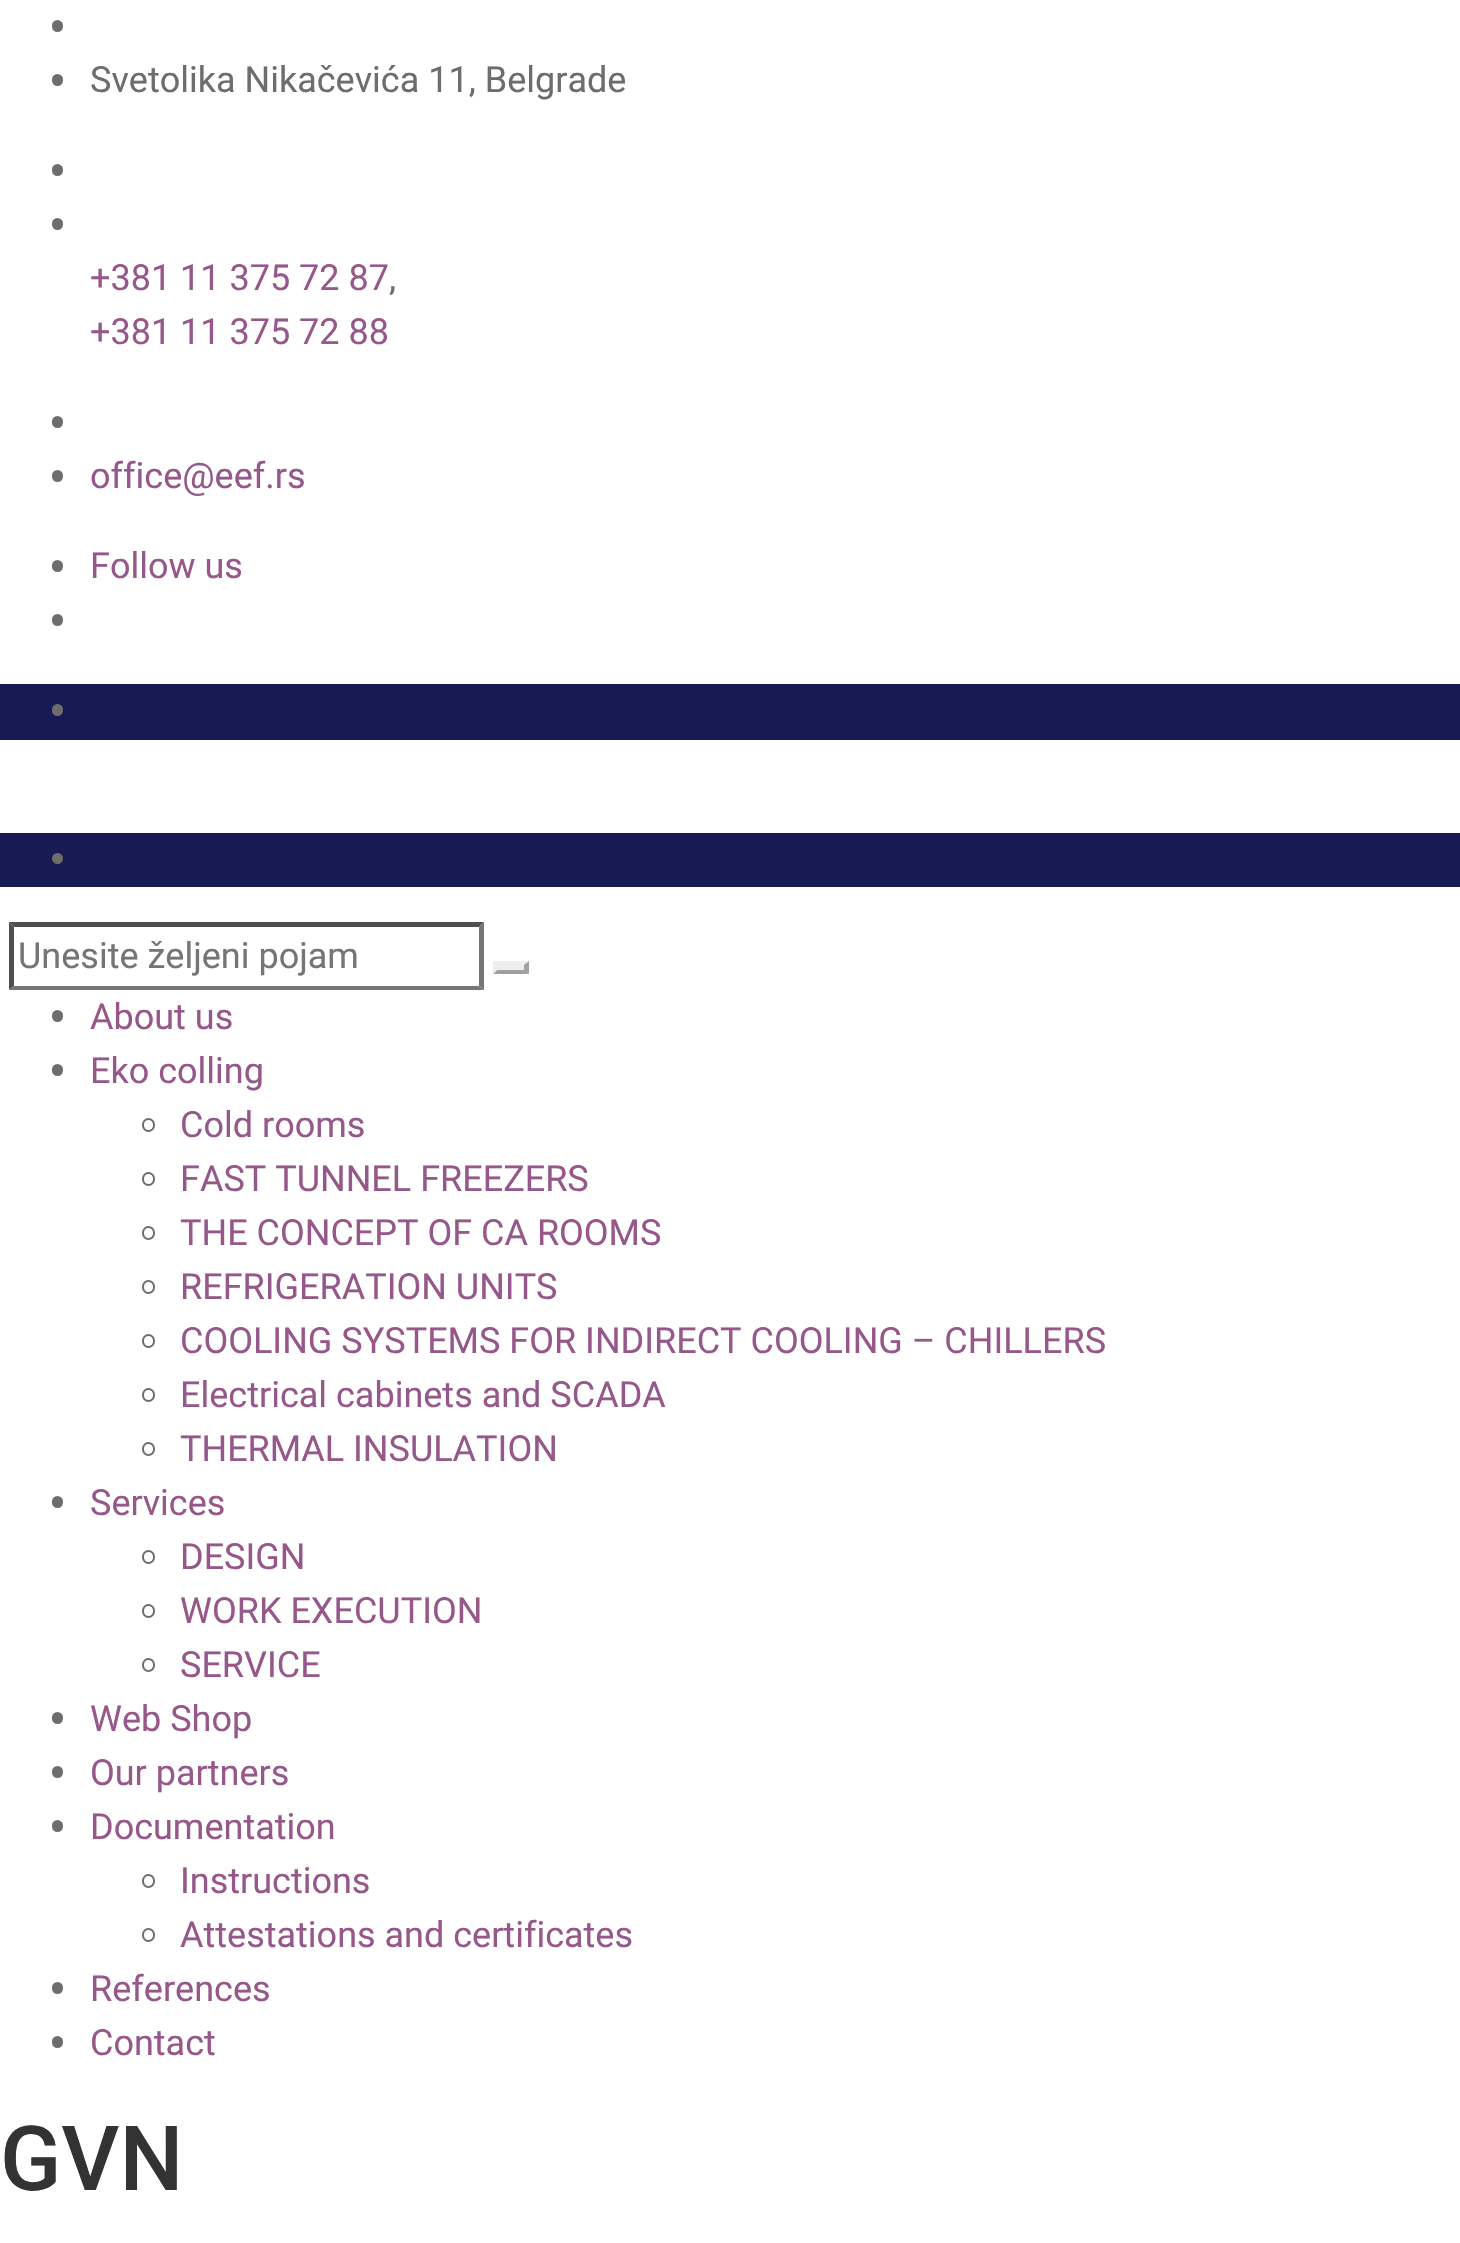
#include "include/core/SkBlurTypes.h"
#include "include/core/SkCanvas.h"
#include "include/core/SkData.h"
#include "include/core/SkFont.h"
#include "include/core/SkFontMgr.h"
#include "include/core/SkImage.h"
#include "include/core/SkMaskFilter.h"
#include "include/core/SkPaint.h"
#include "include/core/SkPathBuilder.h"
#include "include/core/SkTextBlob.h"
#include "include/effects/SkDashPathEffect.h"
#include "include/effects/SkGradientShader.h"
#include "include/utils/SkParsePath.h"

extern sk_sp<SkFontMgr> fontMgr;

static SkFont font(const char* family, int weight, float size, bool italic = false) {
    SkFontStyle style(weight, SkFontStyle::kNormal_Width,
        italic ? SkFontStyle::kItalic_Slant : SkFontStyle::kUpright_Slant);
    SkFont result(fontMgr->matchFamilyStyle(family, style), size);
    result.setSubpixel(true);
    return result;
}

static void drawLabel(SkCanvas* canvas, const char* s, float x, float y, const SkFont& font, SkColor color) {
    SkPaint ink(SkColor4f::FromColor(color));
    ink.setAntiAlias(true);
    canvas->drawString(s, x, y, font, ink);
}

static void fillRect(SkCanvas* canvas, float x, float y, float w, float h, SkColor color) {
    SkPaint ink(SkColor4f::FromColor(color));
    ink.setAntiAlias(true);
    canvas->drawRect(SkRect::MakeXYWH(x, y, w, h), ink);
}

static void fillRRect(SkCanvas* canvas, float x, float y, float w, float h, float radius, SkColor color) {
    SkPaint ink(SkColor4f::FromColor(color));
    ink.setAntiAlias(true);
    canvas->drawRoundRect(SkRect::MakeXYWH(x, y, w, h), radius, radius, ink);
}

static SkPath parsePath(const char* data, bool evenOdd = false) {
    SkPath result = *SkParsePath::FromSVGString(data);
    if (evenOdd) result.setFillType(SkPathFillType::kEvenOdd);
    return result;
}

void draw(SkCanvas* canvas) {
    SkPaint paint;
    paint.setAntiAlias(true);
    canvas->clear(0xFFFFFFFF);
    fillRRect(canvas, 52, 20, 11, 12, 5.5f, 0xFF6D6D6D);
    fillRRect(canvas, 52, 74, 11, 12, 5.5f, 0xFF6D6D6D);
    SkFont font1 = font("Roboto", 400, 36);
    drawLabel(canvas, "Svetolika Nikačevića 11, Belgrade", 90, 92, font1, 0xFF6D6D6D);
    fillRRect(canvas, 52, 164, 11, 12, 5.5f, 0xFF6D6D6D);
    fillRRect(canvas, 52, 218, 11, 12, 5.5f, 0xFF6D6D6D);
    drawLabel(canvas, "+381 11 375 72 87", 90, 290, font1, 0xFF96588A);
    drawLabel(canvas, ",", 389, 290, font1, 0xFF6D6D6D);
    drawLabel(canvas, "+381 11 375 72 88", 90, 344, font1, 0xFF96588A);
    fillRRect(canvas, 52, 416, 11, 12, 5.5f, 0xFF6D6D6D);
    fillRRect(canvas, 52, 470, 11, 12, 5.5f, 0xFF6D6D6D);
    drawLabel(canvas, "office@eef.rs", 90, 488, font1, 0xFF96588A);
    fillRRect(canvas, 52, 560, 11, 12, 5.5f, 0xFF6D6D6D);
    drawLabel(canvas, "Follow us", 90, 578, font1, 0xFF96588A);
    fillRRect(canvas, 52, 614, 11, 12, 5.5f, 0xFF6D6D6D);
    fillRect(canvas, 0, 684, 1460, 56, 0xFF171A54);
    fillRRect(canvas, 52, 704, 11, 12, 5.5f, 0xFF6D6D6D);
    fillRect(canvas, 0, 833, 1460, 54, 0xFF171A54);
    paint.setColor(0xFF6D6D6D);
    canvas->drawCircle(57.5f, 858.5f, 5.5f, paint);
    paint.setColor(0xFF4F4F4F);
    canvas->drawPath(parsePath("M9 922H484L479 927H14Z"), paint);
    paint.setColor(0xFF767676);
    canvas->drawPath(parsePath("M484 922V990L479 986V927Z"), paint);
    canvas->drawPath(parsePath("M484 990H9L14 986H479Z"), paint);
    paint.setColor(0xFF4F4F4F);
    canvas->drawPath(parsePath("M9 990V922L14 927V986Z"), paint);
    drawLabel(canvas, "Unesite željeni pojam", 18, 968, font1, 0xFF757575);
    fillRect(canvas, 493, 961, 36, 13, 0xFFEEEEEE);
    paint.setColor(0xFF9F9F9F);
    canvas->drawPath(parsePath("M529 961V974L524 970V965Z"), paint);
    canvas->drawPath(parsePath("M529 974H493L497 970H524Z"), paint);
    paint.setColor(0xFFEEEEEE);
    canvas->drawPath(parsePath("M493 974V961L497 965V970Z"), paint);
    fillRRect(canvas, 52, 1010, 11, 12, 5.5f, 0xFF6D6D6D);
    drawLabel(canvas, "About us", 90, 1029, font1, 0xFF96588A);
    fillRRect(canvas, 52, 1064, 11, 12, 5.5f, 0xFF6D6D6D);
    drawLabel(canvas, "Eko colling", 90, 1083, font1, 0xFF96588A);
    paint.setStroke(true);
    paint.setStrokeWidth(2);
    paint.setColor(0xFF6D6D6D);
    canvas->drawRoundRect(SkRect::MakeXYWH(143, 1119, 11, 12), 5.5f, 5.5f, paint);
    drawLabel(canvas, "Cold rooms", 180, 1137, font1, 0xFF96588A);
    canvas->drawRoundRect(SkRect::MakeXYWH(143, 1173, 11, 12), 5.5f, 5.5f, paint);
    drawLabel(canvas, "FAST TUNNEL FREEZERS", 180, 1191, font1, 0xFF96588A);
    canvas->drawRoundRect(SkRect::MakeXYWH(143, 1227, 11, 12), 5.5f, 5.5f, paint);
    drawLabel(canvas, "THE CONCEPT OF CA ROOMS", 180, 1245, font1, 0xFF96588A);
    canvas->drawRoundRect(SkRect::MakeXYWH(143, 1281, 11, 12), 5.5f, 5.5f, paint);
    drawLabel(canvas, "REFRIGERATION UNITS", 180, 1299, font1, 0xFF96588A);
    canvas->drawRoundRect(SkRect::MakeXYWH(143, 1335, 11, 12), 5.5f, 5.5f, paint);
    drawLabel(canvas, "COOLING SYSTEMS FOR INDIRECT COOLING – CHILLERS", 180, 1353, font1, 0xFF96588A);
    canvas->drawRoundRect(SkRect::MakeXYWH(143, 1389, 11, 12), 5.5f, 5.5f, paint);
    drawLabel(canvas, "Electrical cabinets and SCADA", 180, 1407, font1, 0xFF96588A);
    canvas->drawRoundRect(SkRect::MakeXYWH(143, 1443, 11, 12), 5.5f, 5.5f, paint);
    drawLabel(canvas, "THERMAL INSULATION", 180, 1461, font1, 0xFF96588A);
    fillRRect(canvas, 52, 1496, 11, 12, 5.5f, 0xFF6D6D6D);
    drawLabel(canvas, "Services", 90, 1515, font1, 0xFF96588A);
    canvas->drawRoundRect(SkRect::MakeXYWH(143, 1551, 11, 12), 5.5f, 5.5f, paint);
    drawLabel(canvas, "DESIGN", 180, 1569, font1, 0xFF96588A);
    canvas->drawRoundRect(SkRect::MakeXYWH(143, 1605, 11, 12), 5.5f, 5.5f, paint);
    drawLabel(canvas, "WORK EXECUTION", 180, 1623, font1, 0xFF96588A);
    canvas->drawRoundRect(SkRect::MakeXYWH(143, 1659, 11, 12), 5.5f, 5.5f, paint);
    drawLabel(canvas, "SERVICE", 180, 1677, font1, 0xFF96588A);
    fillRRect(canvas, 52, 1712, 11, 12, 5.5f, 0xFF6D6D6D);
    drawLabel(canvas, "Web Shop", 90, 1731, font1, 0xFF96588A);
    fillRRect(canvas, 52, 1766, 11, 12, 5.5f, 0xFF6D6D6D);
    drawLabel(canvas, "Our partners", 90, 1785, font1, 0xFF96588A);
    fillRRect(canvas, 52, 1820, 11, 12, 5.5f, 0xFF6D6D6D);
    drawLabel(canvas, "Documentation", 90, 1839, font1, 0xFF96588A);
    canvas->drawRoundRect(SkRect::MakeXYWH(143, 1875, 11, 12), 5.5f, 5.5f, paint);
    drawLabel(canvas, "Instructions", 180, 1893, font1, 0xFF96588A);
    canvas->drawRoundRect(SkRect::MakeXYWH(143, 1929, 11, 12), 5.5f, 5.5f, paint);
    drawLabel(canvas, "Attestations and certificates", 180, 1947, font1, 0xFF96588A);
    fillRRect(canvas, 52, 1982, 11, 12, 5.5f, 0xFF6D6D6D);
    drawLabel(canvas, "References", 90, 2001, font1, 0xFF96588A);
    fillRRect(canvas, 52, 2036, 11, 12, 5.5f, 0xFF6D6D6D);
    drawLabel(canvas, "Contact", 90, 2055, font1, 0xFF96588A);
    SkFont font2 = font("Roboto", 500, 90);
    drawLabel(canvas, "GVN", 0, 2190, font2, 0xFF333333);
}
